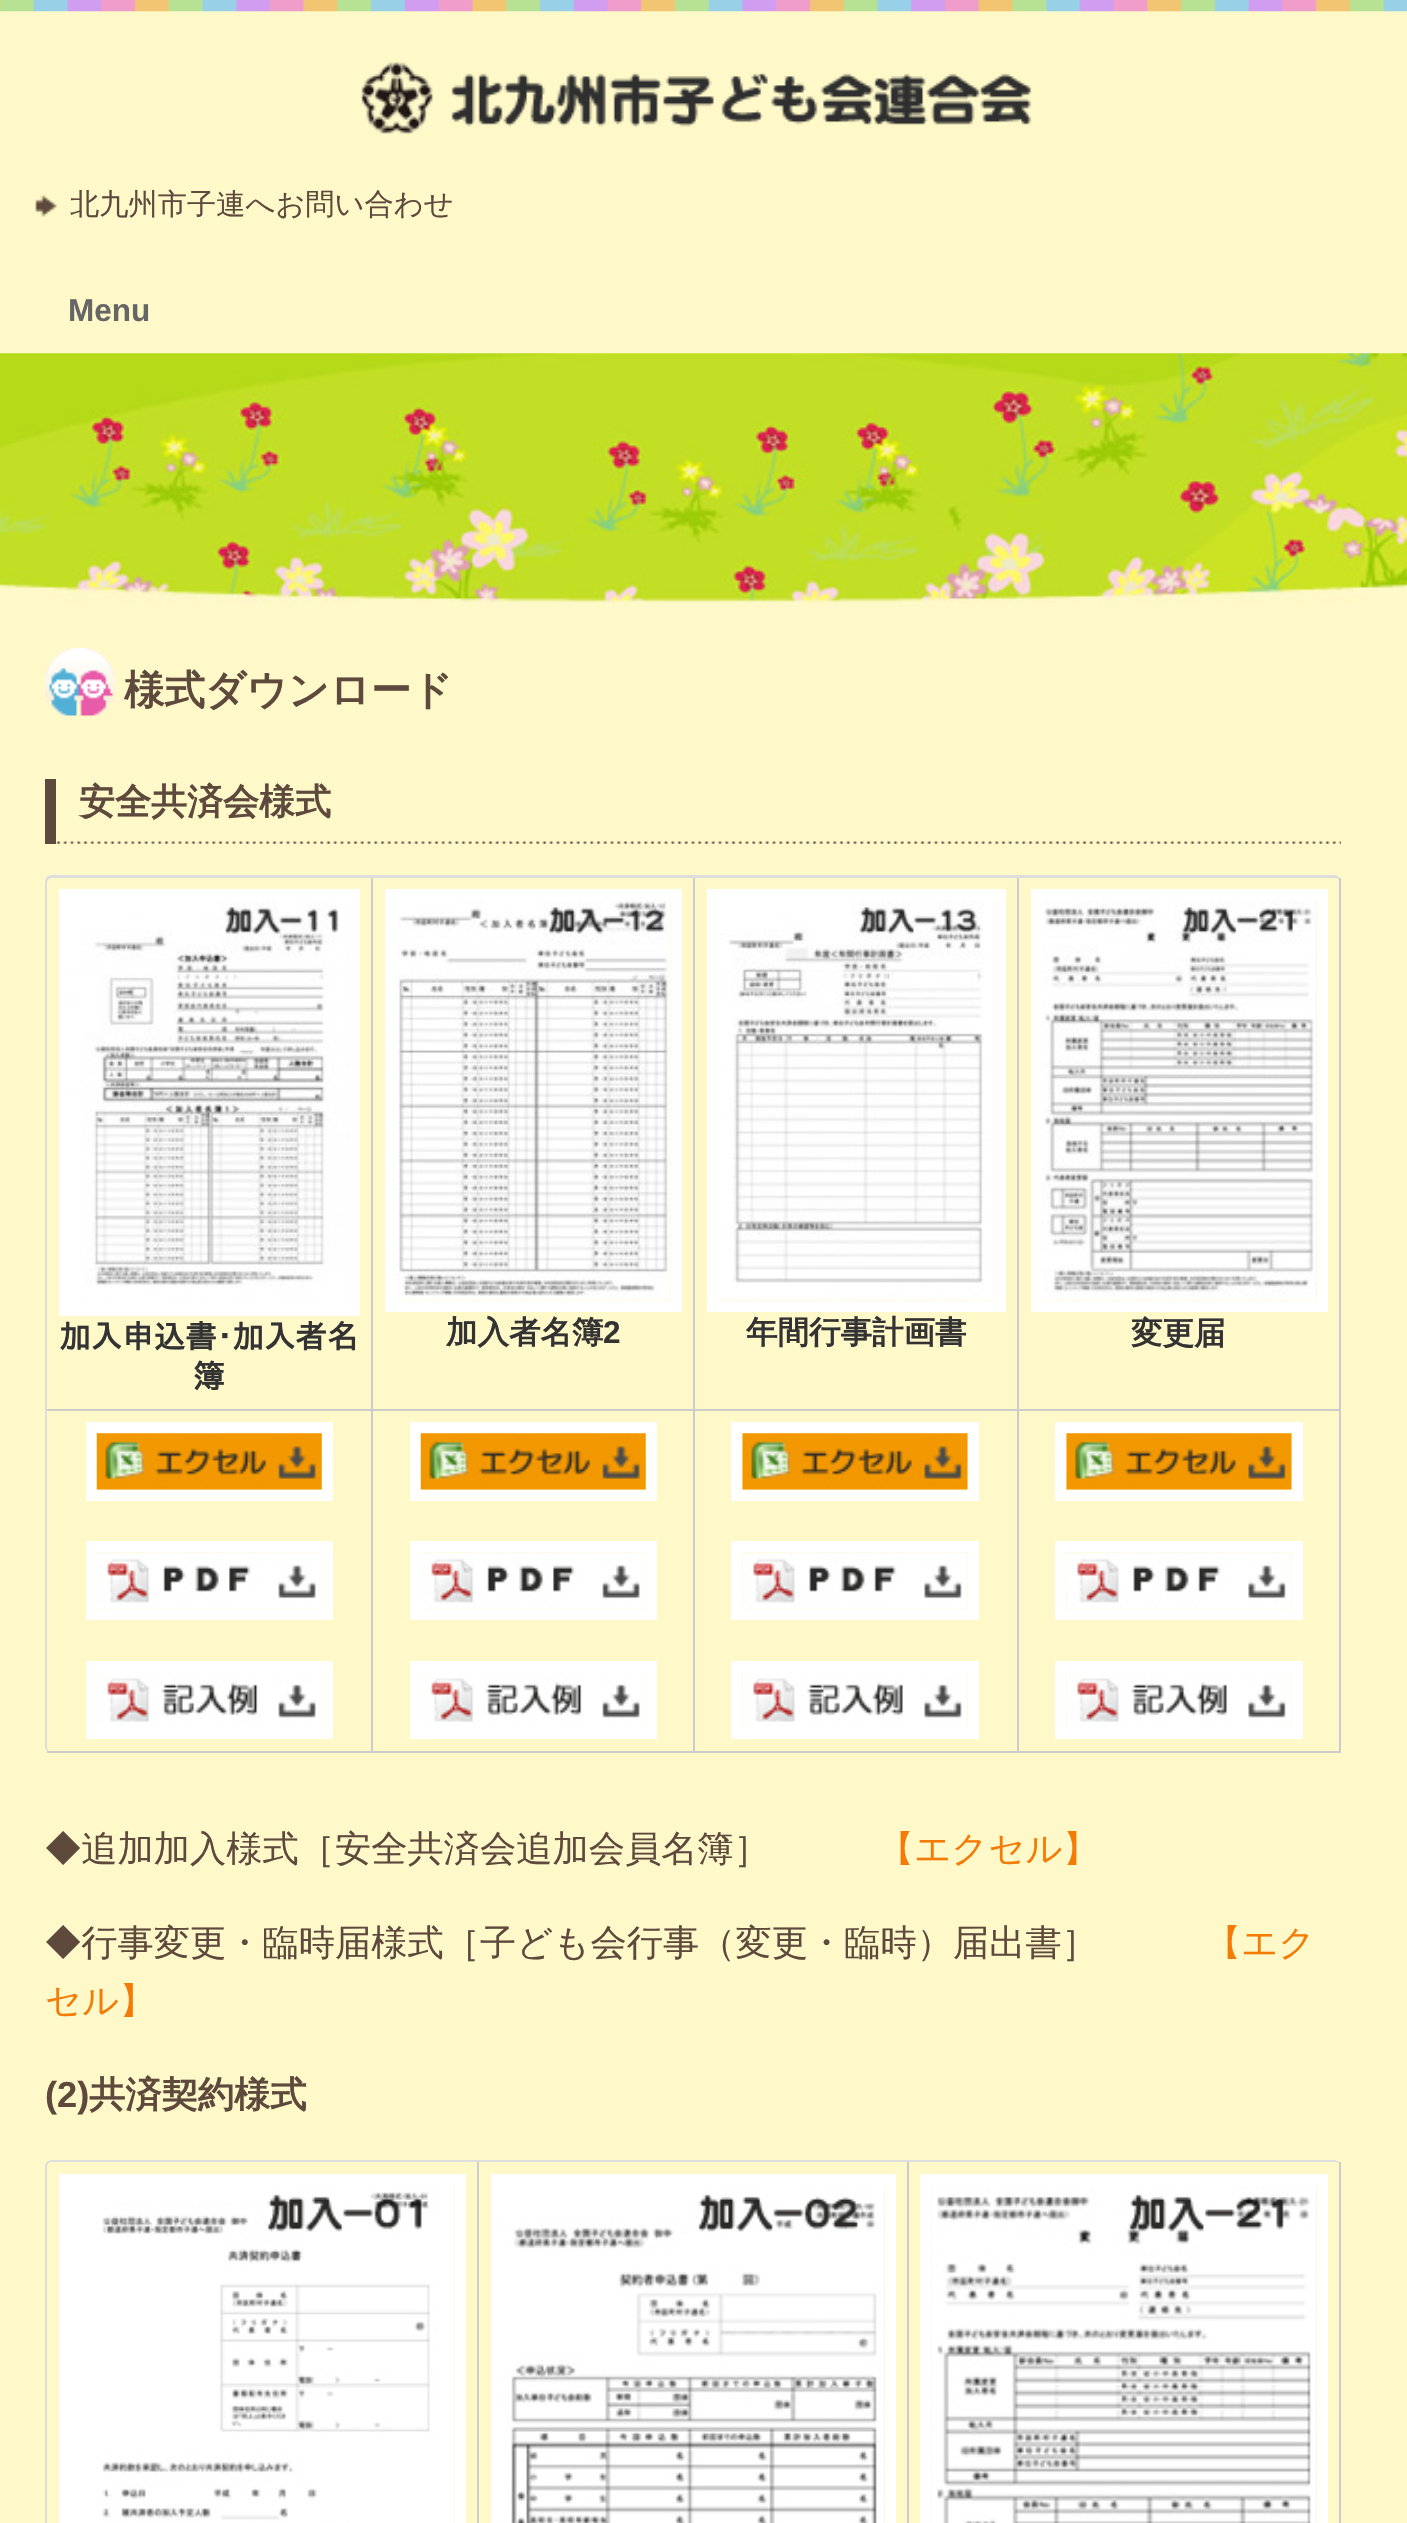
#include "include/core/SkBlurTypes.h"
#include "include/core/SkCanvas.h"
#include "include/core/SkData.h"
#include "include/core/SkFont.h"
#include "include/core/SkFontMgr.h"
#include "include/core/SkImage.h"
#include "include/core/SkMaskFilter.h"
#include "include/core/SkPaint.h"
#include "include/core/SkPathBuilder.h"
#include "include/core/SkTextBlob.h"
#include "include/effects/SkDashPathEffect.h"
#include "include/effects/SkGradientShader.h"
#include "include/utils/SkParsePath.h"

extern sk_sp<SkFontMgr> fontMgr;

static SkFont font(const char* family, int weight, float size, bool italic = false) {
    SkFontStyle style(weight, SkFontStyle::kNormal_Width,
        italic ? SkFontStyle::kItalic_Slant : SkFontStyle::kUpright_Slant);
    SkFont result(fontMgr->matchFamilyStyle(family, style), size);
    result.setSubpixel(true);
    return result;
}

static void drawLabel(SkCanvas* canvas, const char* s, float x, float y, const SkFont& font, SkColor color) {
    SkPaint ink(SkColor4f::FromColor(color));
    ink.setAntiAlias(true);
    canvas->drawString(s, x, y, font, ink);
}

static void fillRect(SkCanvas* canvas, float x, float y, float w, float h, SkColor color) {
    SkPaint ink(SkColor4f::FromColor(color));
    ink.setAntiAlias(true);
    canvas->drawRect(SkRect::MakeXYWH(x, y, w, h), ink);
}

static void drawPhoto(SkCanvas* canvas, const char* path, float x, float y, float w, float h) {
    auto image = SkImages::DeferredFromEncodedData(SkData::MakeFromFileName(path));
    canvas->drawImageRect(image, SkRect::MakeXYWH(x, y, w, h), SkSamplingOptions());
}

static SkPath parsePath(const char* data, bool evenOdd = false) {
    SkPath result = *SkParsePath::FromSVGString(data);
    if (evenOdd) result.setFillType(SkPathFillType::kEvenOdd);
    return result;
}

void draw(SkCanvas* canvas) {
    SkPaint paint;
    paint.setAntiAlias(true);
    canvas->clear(0xFFFFF9CA);
    drawPhoto(canvas, "assets/img1.png", 0, 0, 1407, 12);
    drawPhoto(canvas, "assets/img2.png", 361, 62, 671, 72);
    drawPhoto(canvas, "assets/img3.png", 35, 195, 22, 22);
    SkFont font1 = font("WenQuanYi Zen Hei", 500, 29.25f);
    drawLabel(canvas, "北九州市子連へお問い合わせ", 70, 214, font1, 0xFF5E493D);
    SkFont font2 = font("Liberation Sans", 700, 31.5f);
    drawLabel(canvas, "Menu", 68, 321, font2, 0xFF666666);
    drawPhoto(canvas, "assets/img4.png", 0, 353, 1407, 250);
    drawPhoto(canvas, "assets/img5.png", 45, 648, 70, 68);
    SkFont font3 = font("WenQuanYi Zen Hei", 700, 40.5f);
    drawLabel(canvas, "様式ダウンロード", 124, 704, font3, 0xFF5E493D);
    drawPhoto(canvas, "assets/img6.png", 56, 841, 1285, 3);
    fillRect(canvas, 45, 779, 11, 65, 0xFF5E493D);
    SkFont font4 = font("WenQuanYi Zen Hei", 700, 36);
    drawLabel(canvas, "安全共済会様式", 79, 814, font4, 0xFF5E493D);
    paint.setColor(0xFFDDDDDD);
    canvas->drawPath(parsePath("M52 875H1334C1338 875 1341 878 1341 882V1746C1341 1750 1338 1753 1334 1753H52C48 1753 45 1750 45 1746V882C45 878 48 875 52 875ZM52 878H1334C1338 878 1341 880 1341 882V1746C1341 1750 1338 1753 1334 1753H52C49 1753 47 1750 47 1746V882C47 880 49 878 52 878Z", true), paint);
    fillRect(canvas, 371, 878, 2, 875, 0xFFCCCCCC);
    fillRect(canvas, 47, 1409, 327, 2, 0xFFCCCCCC);
    paint.setStroke(true);
    paint.setStrokeWidth(11);
    paint.setColor(0xFFFFFFFF);
    canvas->drawRect(SkRect::MakeXYWH(64.5f, 894.5f, 290, 416), paint);
    drawPhoto(canvas, "assets/img7.png", 70, 900, 279, 405);
    SkFont font5 = font("IPAPGothic", 700, 31.5f);
    drawLabel(canvas, "加入申込書･加入者名", 59, 1348, font5, 0xFF333333);
    drawLabel(canvas, "簿", 193, 1388, font5, 0xFF333333);
    fillRect(canvas, 693, 878, 2, 875, 0xFFCCCCCC);
    fillRect(canvas, 374, 1409, 321, 2, 0xFFCCCCCC);
    canvas->drawRect(SkRect::MakeXYWH(390.5f, 894.5f, 286, 412), paint);
    drawPhoto(canvas, "assets/img8.png", 396, 900, 275, 401);
    SkFont font6 = font("WenQuanYi Zen Hei", 700, 31.5f);
    drawLabel(canvas, "加入者名簿", 446, 1343, font6, 0xFF333333);
    drawLabel(canvas, "2", 603, 1343, font2, 0xFF333333);
    fillRect(canvas, 1017, 878, 2, 875, 0xFFCCCCCC);
    fillRect(canvas, 695, 1409, 324, 2, 0xFFCCCCCC);
    canvas->drawRect(SkRect::MakeXYWH(712.5f, 894.5f, 288, 412), paint);
    drawPhoto(canvas, "assets/img9.png", 718, 900, 277, 401);
    drawLabel(canvas, "年間行事計画書", 746, 1343, font6, 0xFF333333);
    fillRect(canvas, 1339, 878, 2, 875, 0xFFCCCCCC);
    fillRect(canvas, 1019, 1409, 322, 2, 0xFFCCCCCC);
    canvas->drawRect(SkRect::MakeXYWH(1036.5f, 894.5f, 286, 412), paint);
    drawPhoto(canvas, "assets/img10.png", 1042, 900, 275, 401);
    drawLabel(canvas, "変更届", 1131, 1344, font6, 0xFF333333);
    fillRect(canvas, 47, 1751, 1294, 2, 0xFFCCCCCC);
    canvas->drawRect(SkRect::MakeXYWH(91.5f, 1427.5f, 236, 68), paint);
    drawPhoto(canvas, "assets/img11.png", 96, 1433, 226, 57);
    canvas->drawRect(SkRect::MakeXYWH(91.5f, 1546.5f, 236, 68), paint);
    drawPhoto(canvas, "assets/img12.png", 97, 1552, 225, 57);
    canvas->drawRect(SkRect::MakeXYWH(91.5f, 1666.5f, 236, 67), paint);
    drawPhoto(canvas, "assets/img13.png", 97, 1672, 225, 56);
    canvas->drawRect(SkRect::MakeXYWH(415.5f, 1427.5f, 236, 68), paint);
    drawPhoto(canvas, "assets/img14.png", 420, 1433, 226, 57);
    canvas->drawRect(SkRect::MakeXYWH(415.5f, 1546.5f, 236, 68), paint);
    drawPhoto(canvas, "assets/img15.png", 421, 1552, 225, 57);
    canvas->drawRect(SkRect::MakeXYWH(415.5f, 1666.5f, 236, 67), paint);
    drawPhoto(canvas, "assets/img16.png", 421, 1672, 225, 56);
    canvas->drawRect(SkRect::MakeXYWH(736.5f, 1427.5f, 237, 68), paint);
    drawPhoto(canvas, "assets/img17.png", 742, 1433, 226, 57);
    canvas->drawRect(SkRect::MakeXYWH(736.5f, 1546.5f, 237, 68), paint);
    drawPhoto(canvas, "assets/img18.png", 742, 1552, 226, 57);
    canvas->drawRect(SkRect::MakeXYWH(736.5f, 1666.5f, 237, 67), paint);
    drawPhoto(canvas, "assets/img19.png", 742, 1672, 226, 56);
    canvas->drawRect(SkRect::MakeXYWH(1060.5f, 1427.5f, 237, 68), paint);
    drawPhoto(canvas, "assets/img20.png", 1066, 1433, 226, 57);
    canvas->drawRect(SkRect::MakeXYWH(1060.5f, 1546.5f, 237, 68), paint);
    drawPhoto(canvas, "assets/img21.png", 1066, 1552, 226, 57);
    canvas->drawRect(SkRect::MakeXYWH(1060.5f, 1666.5f, 237, 67), paint);
    drawPhoto(canvas, "assets/img22.png", 1066, 1672, 226, 56);
    SkFont font7 = font("WenQuanYi Zen Hei", 500, 36.25f);
    drawLabel(canvas, "◆追加加入様式［安全共済会追加会員名簿］", 45, 1861, font7, 0xFF5E493D);
    drawLabel(canvas, "【エクセル】", 878, 1861, font7, 0xFFF47C06);
    drawLabel(canvas, "◆行事変更・臨時届様式［子ども会行事（変更・臨時）届出書］", 45, 1955, font7, 0xFF5E493D);
    drawLabel(canvas, "【エク", 1205, 1955, font7, 0xFFF47C06);
    drawLabel(canvas, "セル】", 45, 2013, font7, 0xFFF47C06);
    SkFont font8 = font("Liberation Sans", 700, 36.25f);
    drawLabel(canvas, "(2)", 45, 2107, font8, 0xFF5E493D);
    SkFont font9 = font("WenQuanYi Zen Hei", 700, 36.25f);
    drawLabel(canvas, "共済契約様式", 89, 2107, font9, 0xFF5E493D);
    paint.setStroke(false);
    paint.setColor(0xFFDDDDDD);
    canvas->drawPath(parsePath("M52 2160H1334C1338 2160 1341 2163 1341 2167V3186C1341 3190 1338 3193 1334 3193H52C48 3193 45 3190 45 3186V2167C45 2163 48 2160 52 2160ZM52 2162H1334C1338 2162 1341 2164 1341 2167V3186C1341 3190 1338 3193 1334 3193H52C49 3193 47 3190 47 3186V2167C47 2164 49 2162 52 2162Z", true), paint);
    fillRect(canvas, 477, 2162, 2, 361, 0xFFCCCCCC);
    paint.setStroke(true);
    paint.setColor(0xFFFFFFFF);
    canvas->drawRect(SkRect::MakeXYWH(64.5f, 2179.5f, 396, 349), paint);
    drawPhoto(canvas, "assets/img23.png", 70, 2185, 385, 338);
    fillRect(canvas, 907, 2162, 2, 361, 0xFFCCCCCC);
    canvas->drawRect(SkRect::MakeXYWH(496.5f, 2179.5f, 394, 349), paint);
    drawPhoto(canvas, "assets/img24.png", 502, 2185, 383, 338);
    fillRect(canvas, 1339, 2162, 2, 361, 0xFFCCCCCC);
    canvas->drawRect(SkRect::MakeXYWH(925.5f, 2179.5f, 397, 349), paint);
    drawPhoto(canvas, "assets/img25.png", 931, 2185, 386, 338);
}
